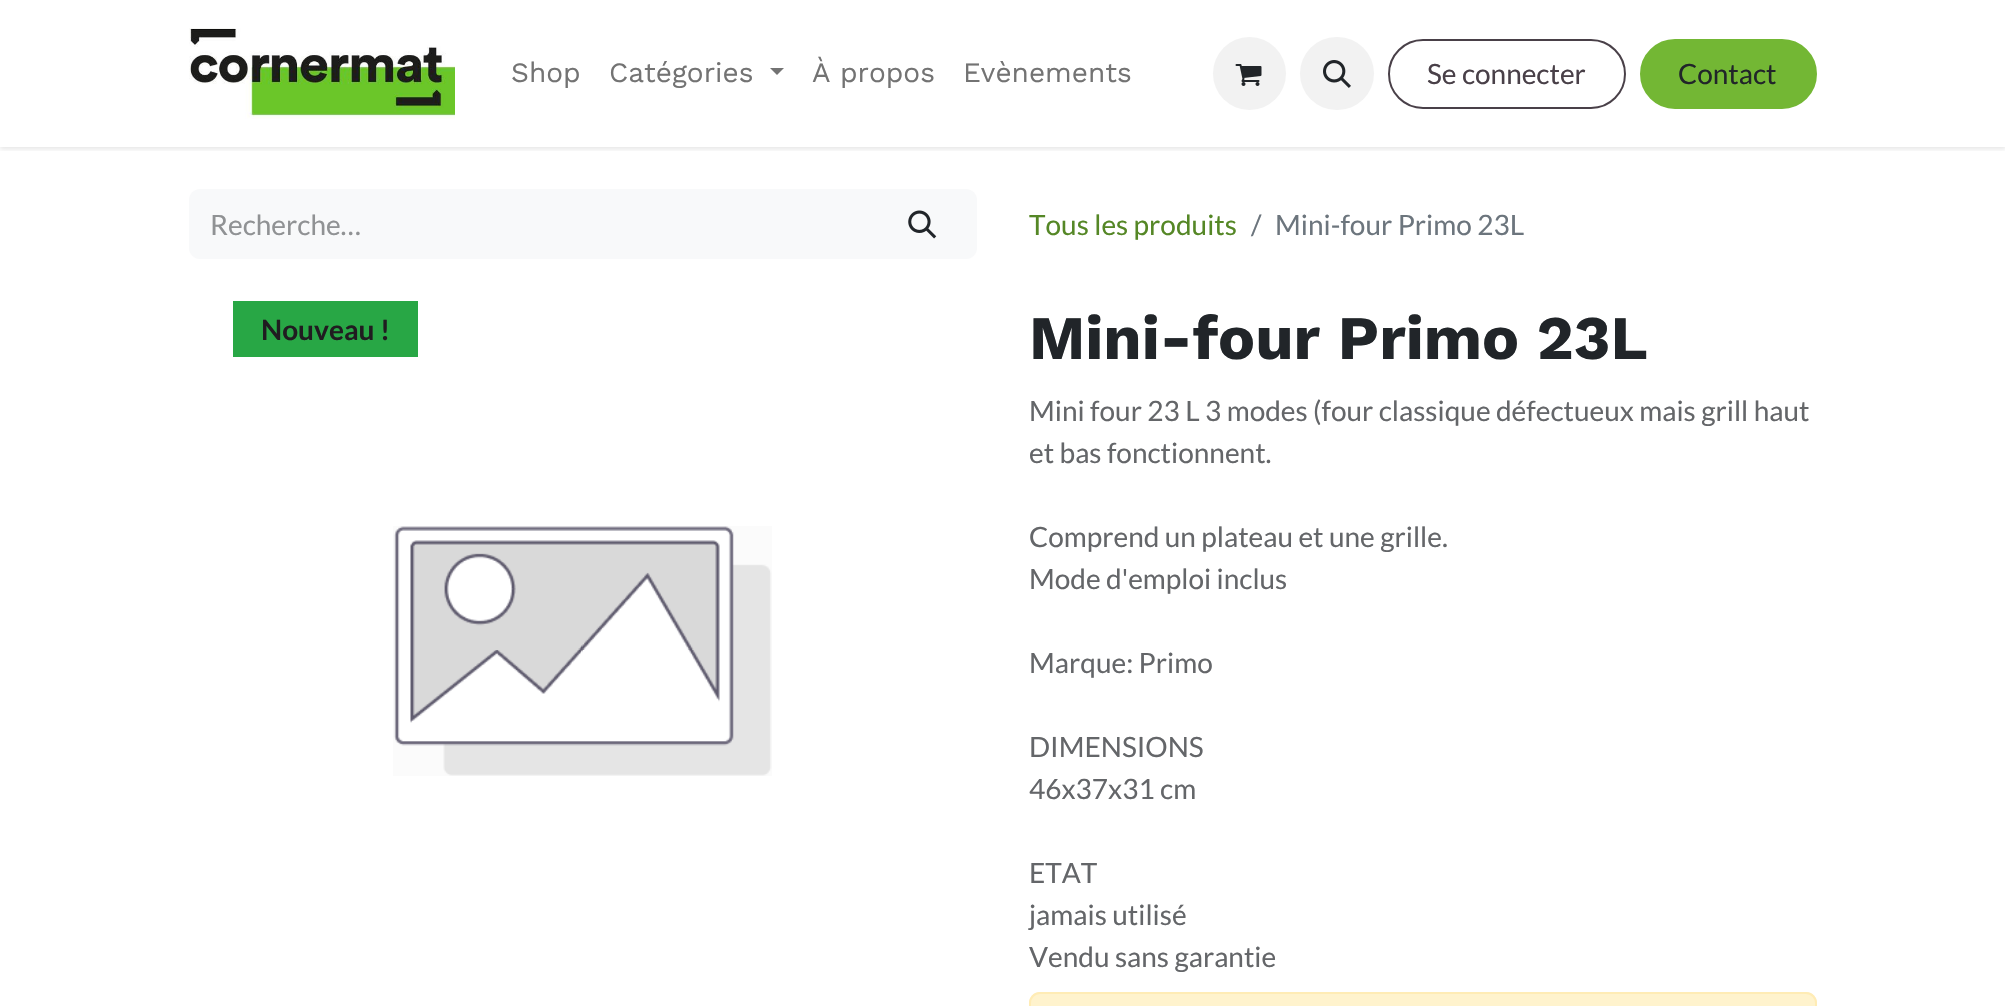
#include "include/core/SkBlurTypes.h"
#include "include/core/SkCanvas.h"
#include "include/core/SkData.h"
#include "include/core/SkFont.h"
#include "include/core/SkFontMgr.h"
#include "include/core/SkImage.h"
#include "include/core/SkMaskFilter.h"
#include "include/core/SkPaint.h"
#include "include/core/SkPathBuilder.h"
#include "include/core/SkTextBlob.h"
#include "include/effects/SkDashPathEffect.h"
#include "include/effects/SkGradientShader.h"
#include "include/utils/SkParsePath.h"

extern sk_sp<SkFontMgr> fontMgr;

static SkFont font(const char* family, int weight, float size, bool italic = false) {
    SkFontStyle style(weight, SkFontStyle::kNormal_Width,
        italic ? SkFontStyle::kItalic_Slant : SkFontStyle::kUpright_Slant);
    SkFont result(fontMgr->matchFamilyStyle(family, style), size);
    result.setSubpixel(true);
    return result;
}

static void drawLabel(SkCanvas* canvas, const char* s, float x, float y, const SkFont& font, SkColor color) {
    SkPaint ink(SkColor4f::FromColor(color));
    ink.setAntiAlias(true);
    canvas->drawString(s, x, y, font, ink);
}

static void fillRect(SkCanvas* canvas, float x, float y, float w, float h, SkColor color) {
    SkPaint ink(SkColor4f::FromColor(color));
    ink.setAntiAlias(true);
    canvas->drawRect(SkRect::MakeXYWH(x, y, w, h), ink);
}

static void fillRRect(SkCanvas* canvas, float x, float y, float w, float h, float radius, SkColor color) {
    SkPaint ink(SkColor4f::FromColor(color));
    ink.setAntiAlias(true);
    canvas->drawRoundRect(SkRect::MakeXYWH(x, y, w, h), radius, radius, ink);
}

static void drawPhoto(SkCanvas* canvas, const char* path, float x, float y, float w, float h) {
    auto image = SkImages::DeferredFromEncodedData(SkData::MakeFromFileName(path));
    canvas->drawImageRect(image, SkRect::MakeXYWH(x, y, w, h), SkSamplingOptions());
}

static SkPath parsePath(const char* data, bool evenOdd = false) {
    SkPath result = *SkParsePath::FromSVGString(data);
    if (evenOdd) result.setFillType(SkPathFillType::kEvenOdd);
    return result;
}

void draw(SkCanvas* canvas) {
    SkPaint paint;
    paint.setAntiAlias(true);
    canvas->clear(0xFFFFFFFF);
    canvas->save();
    canvas->clipRect(SkRect::MakeXYWH(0, 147, 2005, 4));
    paint.setColor(0x1A000000);
    paint.setMaskFilter(SkMaskFilter::MakeBlur(kNormal_SkBlurStyle, 2.5f));
    canvas->drawRect(SkRect::MakeXYWH(0, 2, 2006, 147), paint);
    paint.setMaskFilter(nullptr);
    canvas->restore();
    drawPhoto(canvas, "assets/img1.png", 189, 28, 266, 91);
    SkFont font1 = font("Work Sans", 400, 28);
    drawLabel(canvas, "Shop", 511, 82, font1, 0xFF737373);
    drawLabel(canvas, "Catégories", 609, 82, font1, 0xFF737373);
    paint.setColor(0xFF737373);
    canvas->drawPath(parsePath("M770 68H784L777 75Z"), paint);
    drawLabel(canvas, "À propos", 812, 82, font1, 0xFF737373);
    drawLabel(canvas, "Evènements", 963, 82, font1, 0xFF737373);
    paint.setColor(0xFFF2F2F2);
    canvas->drawCircle(1249.5f, 73.5f, 36.5f, paint);
    drawPhoto(canvas, "assets/img2.png", 1235, 64, 27, 22);
    fillRRect(canvas, 1300, 37, 74, 73, 36.5f, 0xFFF2F2F2);
    drawPhoto(canvas, "assets/img3.png", 1323, 60, 28, 28);
    paint.setStroke(true);
    paint.setStrokeWidth(2);
    paint.setColor(0xFF494048);
    canvas->drawRoundRect(SkRect::MakeXYWH(1389, 40, 236, 68), 34, 34, paint);
    SkFont font2 = font("Lato", 400, 28);
    drawLabel(canvas, "Se connecter", 1427, 84, font2, 0xFF494048);
    paint.setStroke(false);
    paint.setColor(0xFF73B734);
    canvas->drawRoundRect(SkRect::MakeXYWH(1641, 40, 175, 68), 34, 34, paint);
    paint.setStroke(true);
    canvas->drawRoundRect(SkRect::MakeXYWH(1641, 40, 175, 68), 34, 34, paint);
    drawLabel(canvas, "Contact", 1678, 84, font2, 0xFF212529);
    paint.setStroke(false);
    paint.setColor(0xFFF8F9FA);
    canvas->drawPath(parsePath("M200 189H872V259H200C194 259 189 254 189 248V200C189 194 194 189 200 189Z"), paint);
    drawLabel(canvas, "Recherche…", 210, 235, font2, 0xFF909294);
    canvas->drawPath(parsePath("M870 189H966C972 189 977 194 977 200V248C977 254 972 259 966 259H870Z"), paint);
    drawPhoto(canvas, "assets/img4.png", 908, 210, 29, 29);
    drawLabel(canvas, "Tous les produits", 1029, 235, font2, 0xFF558726);
    drawLabel(canvas, "/", 1251, 235, font2, 0xFF6C757D);
    drawLabel(canvas, "Mini-four Primo 23L", 1275, 235, font2, 0xFF6C757D);
    fillRect(canvas, 233, 301, 185, 56, 0xFF28A745);
    SkFont font3 = font("Lato", 700, 28);
    drawLabel(canvas, "Nouveau !", 261, 340, font3, 0xFF201C20);
    drawPhoto(canvas, "assets/img5.png", 393, 526, 379, 250);
    SkFont font4 = font("Work Sans", 700, 61.9f);
    drawLabel(canvas, "Mini-four Primo 23L", 1029, 359, font4, 0xFF212529);
    drawLabel(canvas, "Mini four 23 L 3 modes (four classique défectueux mais grill haut", 1029, 421, font2, 0xFF646669);
    drawLabel(canvas, "et bas fonctionnent.", 1029, 463, font2, 0xFF646669);
    drawLabel(canvas, "Comprend un plateau et une grille.", 1029, 547, font2, 0xFF646669);
    drawLabel(canvas, "Mode d'emploi inclus", 1029, 589, font2, 0xFF646669);
    drawLabel(canvas, "Marque: Primo", 1029, 673, font2, 0xFF646669);
    drawLabel(canvas, "DIMENSIONS", 1029, 757, font2, 0xFF646669);
    drawLabel(canvas, "46x37x31 cm", 1029, 799, font2, 0xFF646669);
    drawLabel(canvas, "ETAT", 1029, 883, font2, 0xFF646669);
    drawLabel(canvas, "jamais utilisé", 1029, 925, font2, 0xFF646669);
    drawLabel(canvas, "Vendu sans garantie", 1029, 967, font2, 0xFF646669);
    paint.setColor(0xFFFFF3CD);
    canvas->drawPath(parsePath("M1040 992H1806C1812 992 1817 997 1817 1003V1006H1029V1003C1029 997 1034 992 1040 992Z"), paint);
    paint.setStroke(true);
    paint.setColor(0xFFFFECB5);
    canvas->drawRoundRect(SkRect::MakeXYWH(1030, 993, 786, 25), 10, 10, paint);
}
